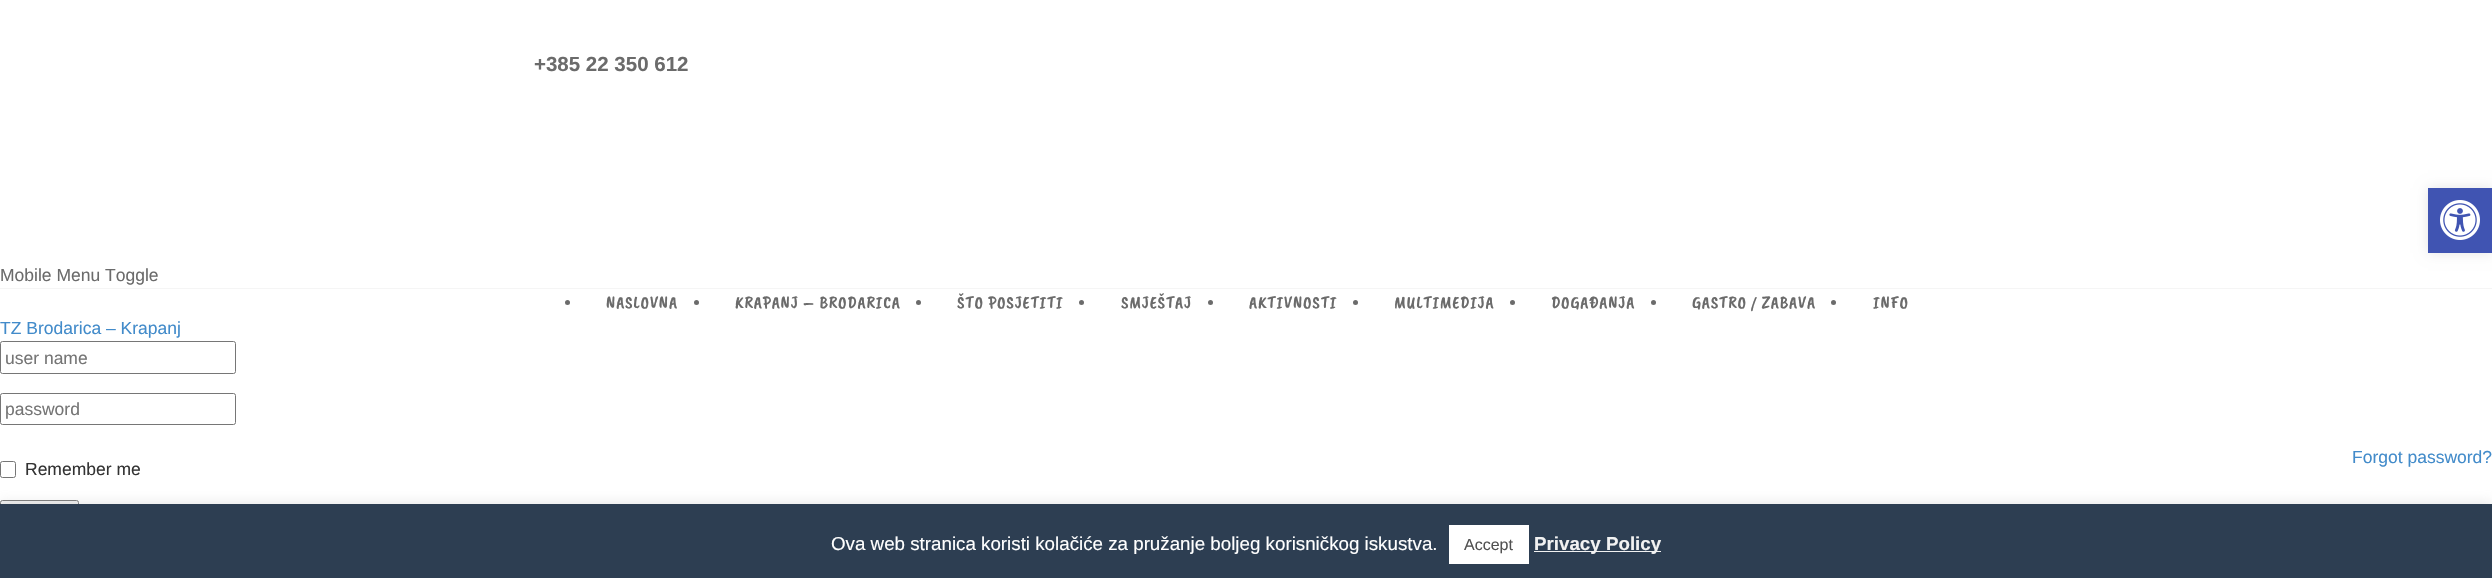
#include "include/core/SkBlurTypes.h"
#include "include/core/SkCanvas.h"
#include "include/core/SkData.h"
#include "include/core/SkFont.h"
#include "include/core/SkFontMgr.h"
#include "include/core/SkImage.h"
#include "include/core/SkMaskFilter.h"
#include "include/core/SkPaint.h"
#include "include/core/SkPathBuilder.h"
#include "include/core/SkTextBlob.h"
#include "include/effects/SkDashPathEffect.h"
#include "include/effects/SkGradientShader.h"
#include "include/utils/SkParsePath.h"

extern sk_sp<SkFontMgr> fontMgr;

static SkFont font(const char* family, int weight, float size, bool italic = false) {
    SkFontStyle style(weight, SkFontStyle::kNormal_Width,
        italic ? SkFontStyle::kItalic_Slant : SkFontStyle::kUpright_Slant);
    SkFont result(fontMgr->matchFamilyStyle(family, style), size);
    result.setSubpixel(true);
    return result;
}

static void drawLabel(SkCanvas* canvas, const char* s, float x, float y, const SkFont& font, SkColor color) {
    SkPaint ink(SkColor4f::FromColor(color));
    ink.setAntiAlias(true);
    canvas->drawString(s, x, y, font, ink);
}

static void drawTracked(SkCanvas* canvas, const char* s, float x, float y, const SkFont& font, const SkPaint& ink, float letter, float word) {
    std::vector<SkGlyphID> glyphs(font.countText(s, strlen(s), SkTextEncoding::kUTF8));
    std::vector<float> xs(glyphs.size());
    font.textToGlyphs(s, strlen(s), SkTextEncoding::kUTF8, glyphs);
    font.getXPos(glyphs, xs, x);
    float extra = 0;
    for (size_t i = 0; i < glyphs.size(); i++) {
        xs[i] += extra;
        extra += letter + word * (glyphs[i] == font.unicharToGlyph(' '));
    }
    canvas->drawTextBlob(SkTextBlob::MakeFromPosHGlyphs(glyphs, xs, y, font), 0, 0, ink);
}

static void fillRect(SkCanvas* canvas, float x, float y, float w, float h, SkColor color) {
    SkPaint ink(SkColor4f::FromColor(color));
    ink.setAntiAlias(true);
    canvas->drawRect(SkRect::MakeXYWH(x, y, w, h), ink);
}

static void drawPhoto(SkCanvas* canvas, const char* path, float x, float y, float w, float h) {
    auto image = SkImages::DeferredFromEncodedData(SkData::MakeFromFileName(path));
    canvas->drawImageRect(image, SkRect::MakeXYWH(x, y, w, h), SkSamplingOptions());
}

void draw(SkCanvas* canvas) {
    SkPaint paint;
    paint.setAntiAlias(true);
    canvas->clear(0xFFFFFFFF);
    SkFont font1 = font("Liberation Sans", 700, 20.5f);
    drawLabel(canvas, "+385 22 350 612", 534, 71, font1, 0xFF6B6B6B);
    SkFont font2 = font("Liberation Sans", 400, 17.5f);
    drawLabel(canvas, "Mobile Menu Toggle", 0, 281, font2, 0xFF6B6B6B);
    fillRect(canvas, 0, 288, 2492, 1, 0xFFF5F5F5);
    paint.setColor(0xFF6B6B6B);
    canvas->drawCircle(567.5f, 302.5f, 2.5f, paint);
    SkFont font3 = font("Caveat Brush", 400, 17.5f);
    drawTracked(canvas, "NASLOVNA", 606, 308, font3, paint, 0.75f, 0);
    canvas->drawCircle(696.5f, 302.5f, 2.5f, paint);
    drawTracked(canvas, "KRAPANJ – BRODARICA", 735, 308, font3, paint, 0.75f, 0);
    canvas->drawCircle(918.5f, 302.5f, 2.5f, paint);
    drawTracked(canvas, "ŠTO POSJETITI", 957, 308, font3, paint, 0.75f, 0);
    canvas->drawCircle(1081.5f, 302.5f, 2.5f, paint);
    drawTracked(canvas, "SMJEŠTAJ", 1121, 308, font3, paint, 0.75f, 0);
    canvas->drawCircle(1210.5f, 302.5f, 2.5f, paint);
    drawTracked(canvas, "AKTIVNOSTI", 1249, 308, font3, paint, 0.75f, 0);
    canvas->drawCircle(1355.5f, 302.5f, 2.5f, paint);
    drawTracked(canvas, "MULTIMEDIJA", 1394, 308, font3, paint, 0.75f, 0);
    canvas->drawCircle(1512.5f, 302.5f, 2.5f, paint);
    drawTracked(canvas, "DOGAĐANJA", 1551, 308, font3, paint, 0.75f, 0);
    canvas->drawCircle(1653.5f, 302.5f, 2.5f, paint);
    drawTracked(canvas, "GASTRO / ZABAVA", 1692, 308, font3, paint, 0.75f, 0);
    canvas->drawCircle(1833.5f, 302.5f, 2.5f, paint);
    drawTracked(canvas, "INFO", 1873, 308, font3, paint, 0.75f, 0);
    drawLabel(canvas, "TZ Brodarica – Krapanj", 0, 334, font2, 0xFF428BCA);
    paint.setStroke(true);
    paint.setStrokeWidth(1);
    paint.setColor(0xFF767676);
    canvas->drawRoundRect(SkRect::MakeXYWH(0.5f, 341.5f, 235, 32), 2, 2, paint);
    drawLabel(canvas, "user name", 5, 364, font2, 0xFF757575);
    canvas->drawRoundRect(SkRect::MakeXYWH(0.5f, 393.5f, 235, 31), 2, 2, paint);
    drawLabel(canvas, "password", 5, 415, font2, 0xFF757575);
    drawLabel(canvas, "Forgot password?", 2352, 463, font2, 0xFF428BCA);
    canvas->drawRoundRect(SkRect::MakeXYWH(0.5f, 461.5f, 15, 16), 2, 2, paint);
    drawLabel(canvas, "Remember me", 25, 475, font2, 0xFF333333);
    paint.setStroke(false);
    paint.setColor(0xFFEFEFEF);
    canvas->drawRoundRect(SkRect::MakeXYWH(0.5f, 500.5f, 78, 32), 2, 2, paint);
    paint.setStroke(true);
    paint.setColor(0xFF767676);
    canvas->drawRoundRect(SkRect::MakeXYWH(0.5f, 500.5f, 78, 32), 2, 2, paint);
    paint.setStroke(false);
    paint.setColor(0x1A000000);
    paint.setMaskFilter(SkMaskFilter::MakeBlur(kNormal_SkBlurStyle, 6));
    canvas->drawRect(SkRect::MakeXYWH(2428, 188, 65, 65), paint);
    paint.setMaskFilter(nullptr);
    fillRect(canvas, 2428, 188, 64, 65, 0xFF4054B2);
    drawPhoto(canvas, "assets/img1.png", 2440, 200, 40, 40);
    paint.setColor(0x4DACABAB);
    paint.setMaskFilter(SkMaskFilter::MakeBlur(kNormal_SkBlurStyle, 6));
    canvas->drawRect(SkRect::MakeXYWH(0, 503, 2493, 75), paint);
    paint.setMaskFilter(nullptr);
    fillRect(canvas, 0, 504, 2492, 74, 0xFF2D3E52);
    SkFont font4 = font("Liberation Sans", 400, 18.75f);
    drawLabel(canvas, "Ova web stranica koristi kolačiće za pružanje boljeg korisničkog iskustva.", 831, 550, font4, 0xFFFFFFFF);
    fillRect(canvas, 1449, 525, 80, 39, 0xFFFFFFFF);
    SkFont font5 = font("Liberation Sans", 400, 16);
    drawLabel(canvas, "Accept", 1464, 550, font5, 0xFF515151);
    fillRect(canvas, 1534, 551, 127, 1, 0xFFF2F2F2);
    SkFont font6 = font("Liberation Sans", 700, 18.75f);
    drawLabel(canvas, "Privacy Policy", 1534, 550, font6, 0xFFF2F2F2);
}
